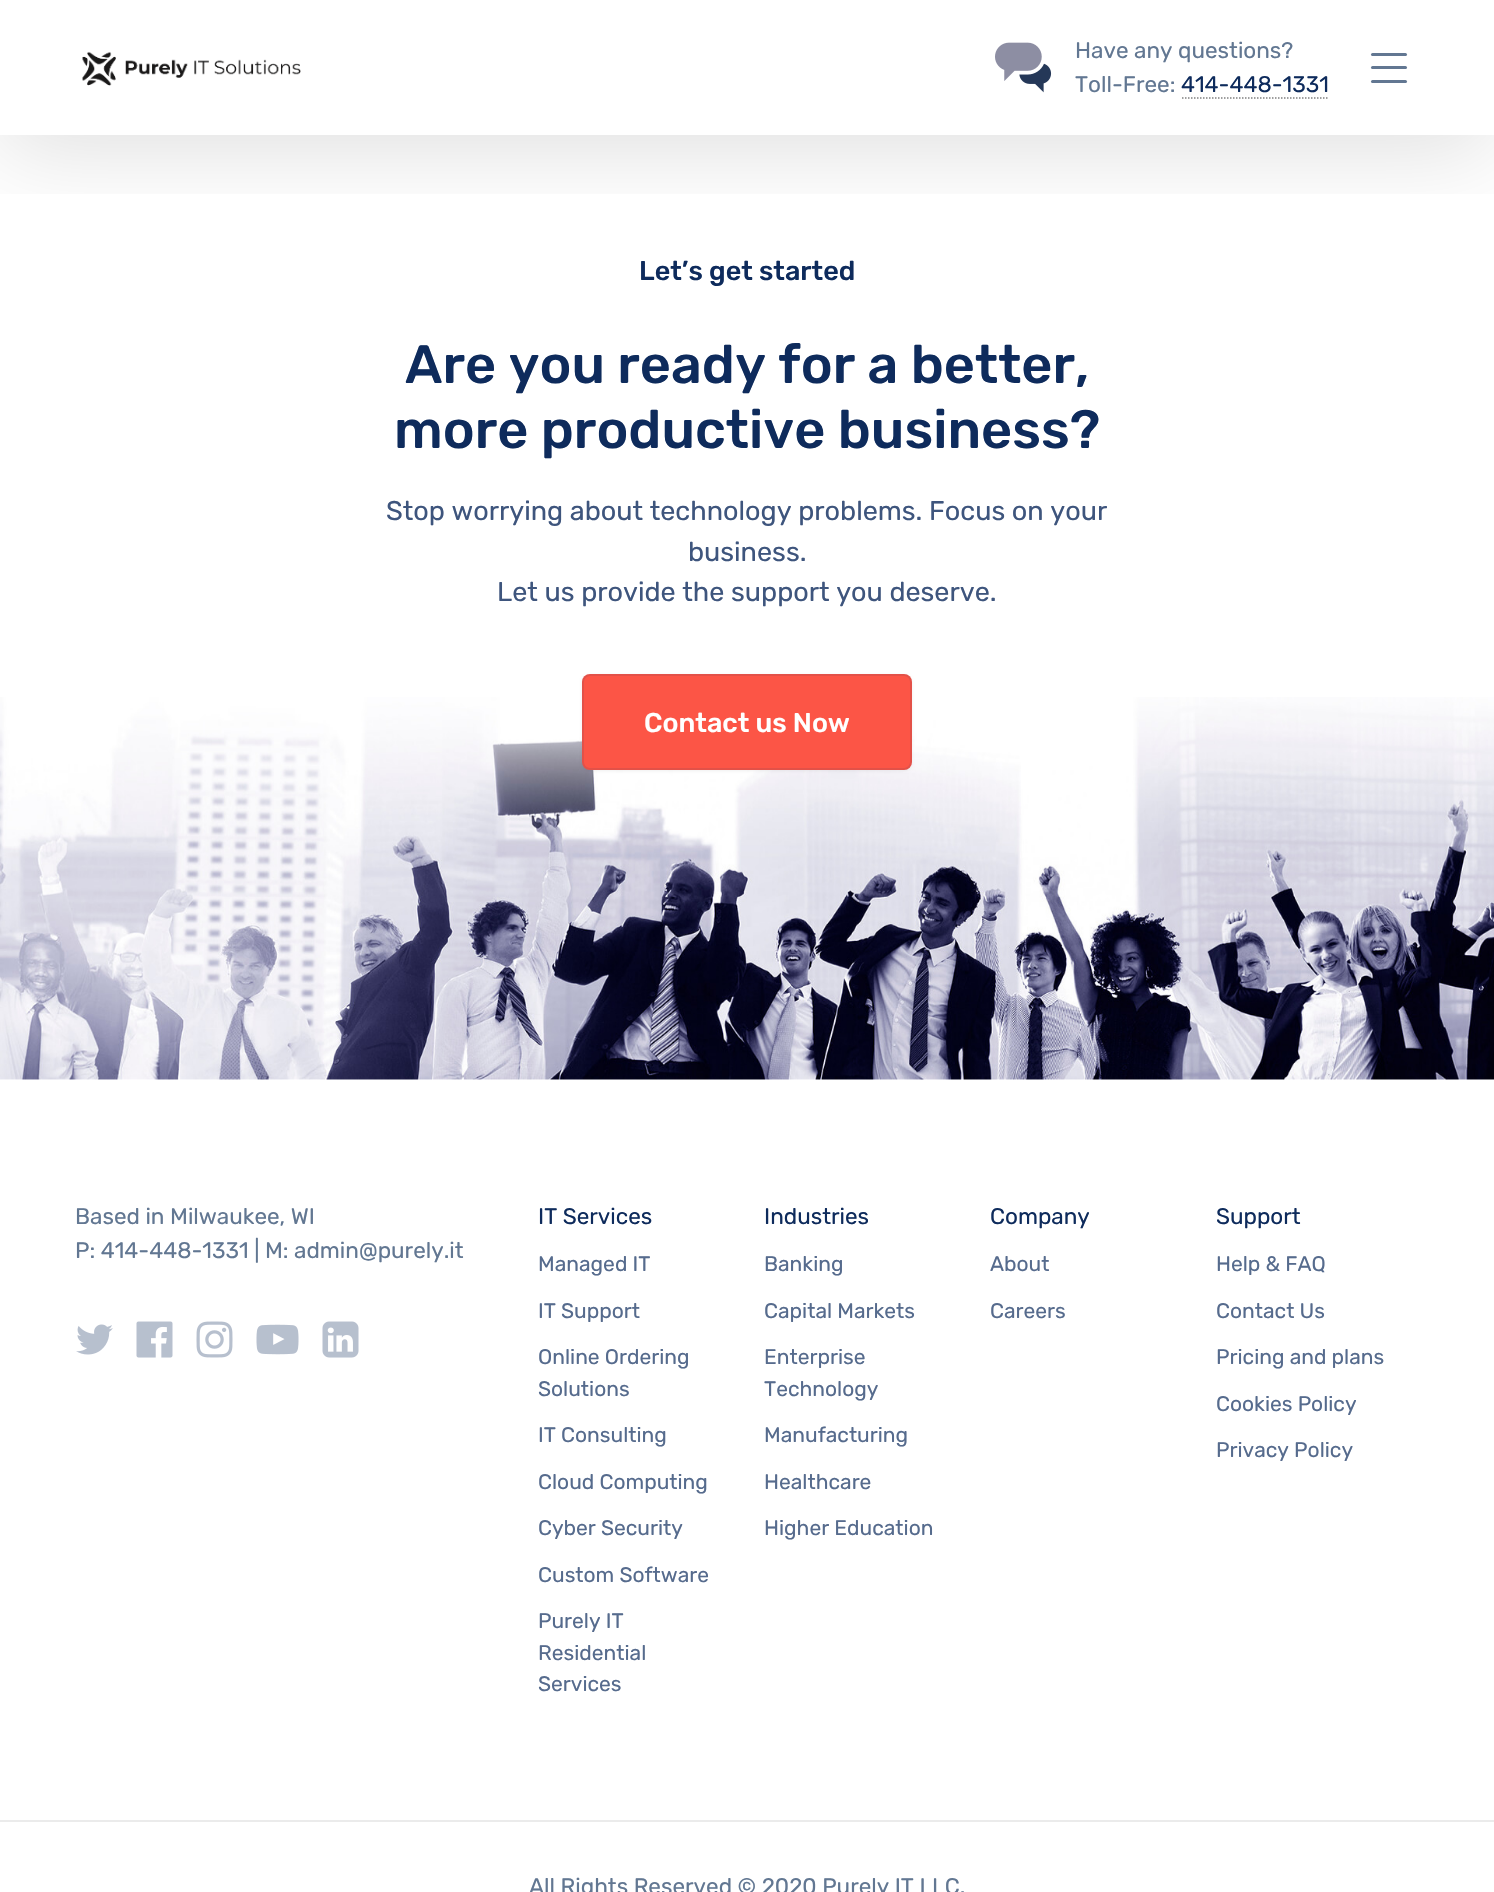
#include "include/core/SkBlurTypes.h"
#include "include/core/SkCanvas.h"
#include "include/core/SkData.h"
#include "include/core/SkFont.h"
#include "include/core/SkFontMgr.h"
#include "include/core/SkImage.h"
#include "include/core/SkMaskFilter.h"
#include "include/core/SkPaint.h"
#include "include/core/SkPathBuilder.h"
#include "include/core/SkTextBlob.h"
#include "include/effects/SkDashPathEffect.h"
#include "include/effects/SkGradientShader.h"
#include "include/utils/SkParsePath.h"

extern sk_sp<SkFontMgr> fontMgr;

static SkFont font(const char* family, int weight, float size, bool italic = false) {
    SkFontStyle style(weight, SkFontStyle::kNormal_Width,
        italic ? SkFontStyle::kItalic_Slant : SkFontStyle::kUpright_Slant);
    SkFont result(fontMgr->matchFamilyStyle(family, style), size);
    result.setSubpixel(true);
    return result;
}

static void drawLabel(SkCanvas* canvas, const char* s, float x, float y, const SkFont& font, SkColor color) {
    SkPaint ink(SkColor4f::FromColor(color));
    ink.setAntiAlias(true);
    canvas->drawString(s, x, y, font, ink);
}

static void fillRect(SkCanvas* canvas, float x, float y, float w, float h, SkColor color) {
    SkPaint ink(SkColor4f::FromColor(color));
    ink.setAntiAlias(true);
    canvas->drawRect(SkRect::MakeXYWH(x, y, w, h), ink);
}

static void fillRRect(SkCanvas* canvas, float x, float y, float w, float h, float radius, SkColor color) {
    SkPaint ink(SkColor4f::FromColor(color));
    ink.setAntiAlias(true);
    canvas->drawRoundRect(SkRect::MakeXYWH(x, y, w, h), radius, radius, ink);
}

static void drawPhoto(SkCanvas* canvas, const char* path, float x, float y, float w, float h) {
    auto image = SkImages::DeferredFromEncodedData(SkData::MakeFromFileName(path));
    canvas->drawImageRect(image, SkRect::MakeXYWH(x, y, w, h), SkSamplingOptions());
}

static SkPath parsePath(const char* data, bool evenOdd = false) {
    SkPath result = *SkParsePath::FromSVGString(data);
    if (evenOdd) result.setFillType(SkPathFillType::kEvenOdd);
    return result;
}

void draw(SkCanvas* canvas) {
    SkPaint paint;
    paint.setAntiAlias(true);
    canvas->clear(0xFFFFFFFF);
    canvas->save();
    canvas->clipRect(SkRect::MakeXYWH(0, 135, 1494, 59));
    paint.setColor(0x1F000000);
    paint.setMaskFilter(SkMaskFilter::MakeBlur(kNormal_SkBlurStyle, 45));
    canvas->drawRect(SkRect::MakeXYWH(0, 15, 1494, 135), paint);
    paint.setMaskFilter(nullptr);
    canvas->restore();
    drawPhoto(canvas, "assets/img1.png", 82, 51, 219, 35);
    drawPhoto(canvas, "assets/img2.png", 995, 42, 57, 51);
    SkFont font1 = font("Rubik", 400, 22.5f);
    drawLabel(canvas, "Have any questions?", 1075, 58, font1, 0xFF627792);
    drawLabel(canvas, "Toll-Free:", 1075, 92, font1, 0xFF627792);
    drawLabel(canvas, "414-448-1331", 1181, 92, font1, 0xFF0E2B5C);
    paint.setStroke(true);
    paint.setStrokeWidth(1.5f);
    paint.setColor(0xFF7F7F7F);
    paint.setPathEffect(SkDashPathEffect::Make({{1.5f, 1.5f}}, 0));
    canvas->drawPath(parsePath("M1182 98H1329"), paint);
    paint.setPathEffect(nullptr);
    fillRRect(canvas, 1371, 53, 36, 3, 1.5f, 0xFF627792);
    fillRRect(canvas, 1371, 80, 36, 3, 1.5f, 0xFF627792);
    fillRRect(canvas, 1371, 66, 36, 3, 1.5f, 0xFF627792);
    drawPhoto(canvas, "assets/img3.png", 0, 697, 1494, 383);
    SkFont font2 = font("Rubik", 500, 27);
    drawLabel(canvas, "Let’s get started", 639, 280, font2, 0xFF0E2B5C);
    SkFont font3 = font("Rubik", 500, 54);
    drawLabel(canvas, "Are you ready for a better,", 405, 383, font3, 0xFF0E2B5C);
    drawLabel(canvas, "more productive business?", 394, 448, font3, 0xFF0E2B5C);
    SkFont font4 = font("Rubik", 400, 27);
    drawLabel(canvas, "Stop worrying about technology problems. Focus on your", 386, 520, font4, 0xFF3E557D);
    drawLabel(canvas, "business.", 688, 561, font4, 0xFF3E557D);
    drawLabel(canvas, "Let us provide the support you deserve.", 497, 601, font4, 0xFF3E557D);
    paint.setStroke(false);
    paint.setColor(0x0F000000);
    paint.setMaskFilter(SkMaskFilter::MakeBlur(kNormal_SkBlurStyle, 1.5f));
    canvas->drawRoundRect(SkRect::MakeXYWH(582, 675, 330, 96), 8, 8, paint);
    paint.setMaskFilter(nullptr);
    fillRRect(canvas, 582, 674, 330, 96, 8, 0xFFFC5546);
    paint.setStroke(true);
    paint.setStrokeWidth(2);
    paint.setColor(0x1A0E2B5C);
    canvas->drawRoundRect(SkRect::MakeXYWH(583, 675, 328, 94), 7, 7, paint);
    drawLabel(canvas, "Contact us Now", 644, 732, font2, 0xFFFFFFFF);
    drawLabel(canvas, "Based in Milwaukee, WI", 75, 1224, font1, 0xFF627792);
    drawLabel(canvas, "P: 414-448-1331 | M: admin@purely.it", 75, 1258, font1, 0xFF627792);
    drawPhoto(canvas, "assets/img4.png", 76, 1324, 37, 31);
    drawPhoto(canvas, "assets/img5.png", 136, 1321, 37, 37);
    drawPhoto(canvas, "assets/img6.png", 196, 1321, 37, 37);
    drawPhoto(canvas, "assets/img7.png", 256, 1324, 43, 31);
    drawPhoto(canvas, "assets/img8.png", 322, 1321, 37, 37);
    drawLabel(canvas, "IT Services", 538, 1224, font1, 0xFF0E2B5C);
    SkFont font5 = font("Rubik", 400, 21);
    drawLabel(canvas, "Managed IT", 538, 1271, font5, 0xFF566B8D);
    drawLabel(canvas, "IT Support", 538, 1318, font5, 0xFF566B8D);
    drawLabel(canvas, "Online Ordering", 538, 1364, font5, 0xFF566B8D);
    drawLabel(canvas, "Solutions", 538, 1396, font5, 0xFF566B8D);
    drawLabel(canvas, "IT Consulting", 538, 1442, font5, 0xFF566B8D);
    drawLabel(canvas, "Cloud Computing", 538, 1489, font5, 0xFF566B8D);
    drawLabel(canvas, "Cyber Security", 538, 1535, font5, 0xFF566B8D);
    drawLabel(canvas, "Custom Software", 538, 1582, font5, 0xFF566B8D);
    drawLabel(canvas, "Purely IT", 538, 1628, font5, 0xFF566B8D);
    drawLabel(canvas, "Residential", 538, 1660, font5, 0xFF566B8D);
    drawLabel(canvas, "Services", 538, 1691, font5, 0xFF566B8D);
    drawLabel(canvas, "Industries", 764, 1224, font1, 0xFF0E2B5C);
    drawLabel(canvas, "Banking", 764, 1271, font5, 0xFF566B8D);
    drawLabel(canvas, "Capital Markets", 764, 1318, font5, 0xFF566B8D);
    drawLabel(canvas, "Enterprise", 764, 1364, font5, 0xFF566B8D);
    drawLabel(canvas, "Technology", 764, 1396, font5, 0xFF566B8D);
    drawLabel(canvas, "Manufacturing", 764, 1442, font5, 0xFF566B8D);
    drawLabel(canvas, "Healthcare", 764, 1489, font5, 0xFF566B8D);
    drawLabel(canvas, "Higher Education", 764, 1535, font5, 0xFF566B8D);
    drawLabel(canvas, "Company", 990, 1224, font1, 0xFF0E2B5C);
    drawLabel(canvas, "About", 990, 1271, font5, 0xFF566B8D);
    drawLabel(canvas, "Careers", 990, 1318, font5, 0xFF566B8D);
    drawLabel(canvas, "Support", 1216, 1224, font1, 0xFF0E2B5C);
    drawLabel(canvas, "Help & FAQ", 1216, 1271, font5, 0xFF566B8D);
    drawLabel(canvas, "Contact Us", 1216, 1318, font5, 0xFF566B8D);
    drawLabel(canvas, "Pricing and plans", 1216, 1364, font5, 0xFF566B8D);
    drawLabel(canvas, "Cookies Policy", 1216, 1411, font5, 0xFF566B8D);
    drawLabel(canvas, "Privacy Policy", 1216, 1457, font5, 0xFF566B8D);
    fillRect(canvas, 0, 1820, 1494, 2, 0xFFEBEBEB);
    drawLabel(canvas, "All Rights Reserved © 2020 Purely IT LLC.", 529, 1894, font1, 0xFF627792);
}
